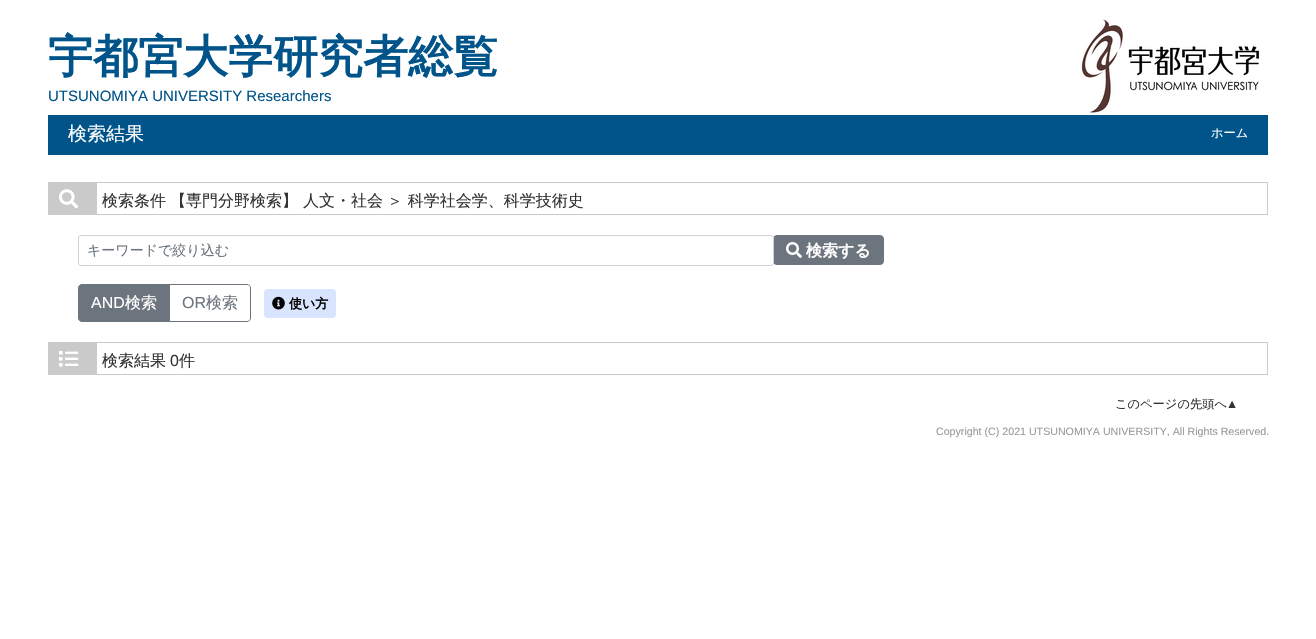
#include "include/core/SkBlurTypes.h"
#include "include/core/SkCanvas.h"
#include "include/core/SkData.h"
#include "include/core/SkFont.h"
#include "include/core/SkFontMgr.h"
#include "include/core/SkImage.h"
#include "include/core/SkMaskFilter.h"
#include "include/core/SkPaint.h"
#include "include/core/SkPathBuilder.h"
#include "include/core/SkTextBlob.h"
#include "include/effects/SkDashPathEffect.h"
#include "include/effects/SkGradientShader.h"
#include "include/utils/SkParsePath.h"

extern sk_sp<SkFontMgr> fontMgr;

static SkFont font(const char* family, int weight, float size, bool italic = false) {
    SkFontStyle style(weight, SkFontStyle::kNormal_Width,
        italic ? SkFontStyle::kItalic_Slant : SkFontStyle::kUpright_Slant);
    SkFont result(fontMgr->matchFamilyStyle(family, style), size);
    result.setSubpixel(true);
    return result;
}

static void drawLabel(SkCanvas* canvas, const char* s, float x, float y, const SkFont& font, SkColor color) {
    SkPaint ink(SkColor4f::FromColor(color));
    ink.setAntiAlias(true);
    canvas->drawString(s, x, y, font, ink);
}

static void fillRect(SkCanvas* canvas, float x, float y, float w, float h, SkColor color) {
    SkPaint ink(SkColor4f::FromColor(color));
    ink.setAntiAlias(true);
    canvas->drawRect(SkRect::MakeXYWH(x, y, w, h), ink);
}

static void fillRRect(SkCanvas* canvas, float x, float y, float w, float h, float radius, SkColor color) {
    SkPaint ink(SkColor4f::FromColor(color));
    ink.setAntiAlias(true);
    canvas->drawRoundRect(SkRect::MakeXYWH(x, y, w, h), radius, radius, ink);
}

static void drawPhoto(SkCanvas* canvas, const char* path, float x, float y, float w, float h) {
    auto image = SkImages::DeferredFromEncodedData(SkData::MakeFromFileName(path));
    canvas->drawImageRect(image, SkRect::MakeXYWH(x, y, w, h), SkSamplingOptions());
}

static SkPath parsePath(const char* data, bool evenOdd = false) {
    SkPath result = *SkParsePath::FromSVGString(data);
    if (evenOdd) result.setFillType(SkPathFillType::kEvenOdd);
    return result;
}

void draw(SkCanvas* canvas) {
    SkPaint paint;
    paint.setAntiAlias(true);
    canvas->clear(0xFFFFFFFF);
    SkFont font1 = font("WenQuanYi Zen Hei", 700, 45);
    drawLabel(canvas, "宇都宮大学研究者総覧", 48, 72, font1, 0xFF00548A);
    SkFont font2 = font("Liberation Sans", 400, 15);
    drawLabel(canvas, "UTSUNOMIYA UNIVERSITY Researchers", 48, 101, font2, 0xFF00548A);
    drawPhoto(canvas, "assets/img1.png", 1081, 19, 179, 94);
    fillRect(canvas, 48, 115, 1220, 40, 0xFF00548A);
    SkFont font3 = font("WenQuanYi Zen Hei", 500, 19);
    drawLabel(canvas, "検索結果", 68, 140, font3, 0xFFFFFFFF);
    SkFont font4 = font("WenQuanYi Zen Hei", 500, 12.25f);
    drawLabel(canvas, "ホーム", 1211, 137, font4, 0xFFFFFFFF);
    paint.setStroke(true);
    paint.setStrokeWidth(1);
    paint.setColor(0xFFCACACA);
    canvas->drawRect(SkRect::MakeXYWH(48.5f, 182.5f, 1219, 32), paint);
    fillRect(canvas, 49, 183, 48, 31, 0xFFCACACA);
    drawPhoto(canvas, "assets/img2.png", 59, 189, 20, 20);
    SkFont font5 = font("WenQuanYi Zen Hei", 500, 16);
    drawLabel(canvas, "検索条件", 102, 206, font5, 0xFF333333);
    drawLabel(canvas, "【専門分野検索】", 170, 206, font5, 0xFF333333);
    drawLabel(canvas, "人文・社会", 303, 206, font5, 0xFF333333);
    drawLabel(canvas, "＞ 科学社会学、科学技術史", 387, 206, font5, 0xFF333333);
    paint.setStroke(false);
    paint.setColor(0xFF6C757D);
    canvas->drawRoundRect(SkRect::MakeXYWH(773.5f, 235.5f, 110, 29), 3.5f, 3.5f, paint);
    paint.setStroke(true);
    canvas->drawRoundRect(SkRect::MakeXYWH(773.5f, 235.5f, 110, 29), 3.5f, 3.5f, paint);
    paint.setColor(0xFFCED4DA);
    canvas->drawRoundRect(SkRect::MakeXYWH(78.5f, 235.5f, 695, 30), 2.5f, 2.5f, paint);
    SkFont font6 = font("WenQuanYi Zen Hei", 500, 14);
    drawLabel(canvas, "キーワードで絞り込む", 87, 255, font6, 0xFF6C757D);
    drawPhoto(canvas, "assets/img3.png", 786, 242, 16, 16);
    SkFont font7 = font("WenQuanYi Zen Hei", 700, 16);
    drawLabel(canvas, "検索する", 806, 256, font7, 0xFFFFFFFF);
    paint.setColor(0xFF6C757D);
    canvas->drawPath(parsePath("M169.5 284.5H247C249 284.5 250.5 286 250.5 288V318C250.5 320 249 321.5 247 321.5H169.5Z"), paint);
    paint.setStroke(false);
    canvas->drawPath(parsePath("M82 284.5H169.5V321.5H82C80 321.5 78.5 320 78.5 318V288C78.5 286 80 284.5 82 284.5Z"), paint);
    paint.setStroke(true);
    canvas->drawPath(parsePath("M82 284.5H169.5V321.5H82C80 321.5 78.5 320 78.5 318V288C78.5 286 80 284.5 82 284.5Z"), paint);
    SkFont font8 = font("Liberation Sans", 400, 16);
    drawLabel(canvas, "AND", 91, 308, font8, 0xFFFFFFFF);
    drawLabel(canvas, "検索", 125, 308, font5, 0xFFFFFFFF);
    drawLabel(canvas, "OR", 182, 308, font8, 0xFF6C757D);
    drawLabel(canvas, "検索", 206, 308, font5, 0xFF6C757D);
    fillRRect(canvas, 264, 289, 72, 29, 4, 0xFFD9E5FF);
    drawPhoto(canvas, "assets/img4.png", 272, 296, 13, 14);
    SkFont font9 = font("WenQuanYi Zen Hei", 700, 13);
    drawLabel(canvas, "使い方", 289, 308, font9, 0xFF000000);
    paint.setColor(0xFFCACACA);
    canvas->drawRect(SkRect::MakeXYWH(48.5f, 342.5f, 1219, 32), paint);
    fillRect(canvas, 49, 343, 48, 31, 0xFFCACACA);
    drawPhoto(canvas, "assets/img5.png", 59, 351, 20, 16);
    drawLabel(canvas, "検索結果", 102, 366, font5, 0xFF333333);
    drawLabel(canvas, "0", 170, 366, font8, 0xFF333333);
    drawLabel(canvas, "件", 179, 366, font5, 0xFF333333);
    drawLabel(canvas, "このページの先頭へ", 1115, 408, font4, 0xFF333333);
    SkFont font10 = font("Liberation Sans", 400, 12.25f);
    drawLabel(canvas, "▲", 1226, 408, font10, 0xFF333333);
    SkFont font11 = font("Liberation Sans", 400, 10.65f);
    drawLabel(canvas, "Copyright (C) 2021 UTSUNOMIYA UNIVERSITY, All Rights Reserved.", 936, 435, font11, 0xFF999999);
}
